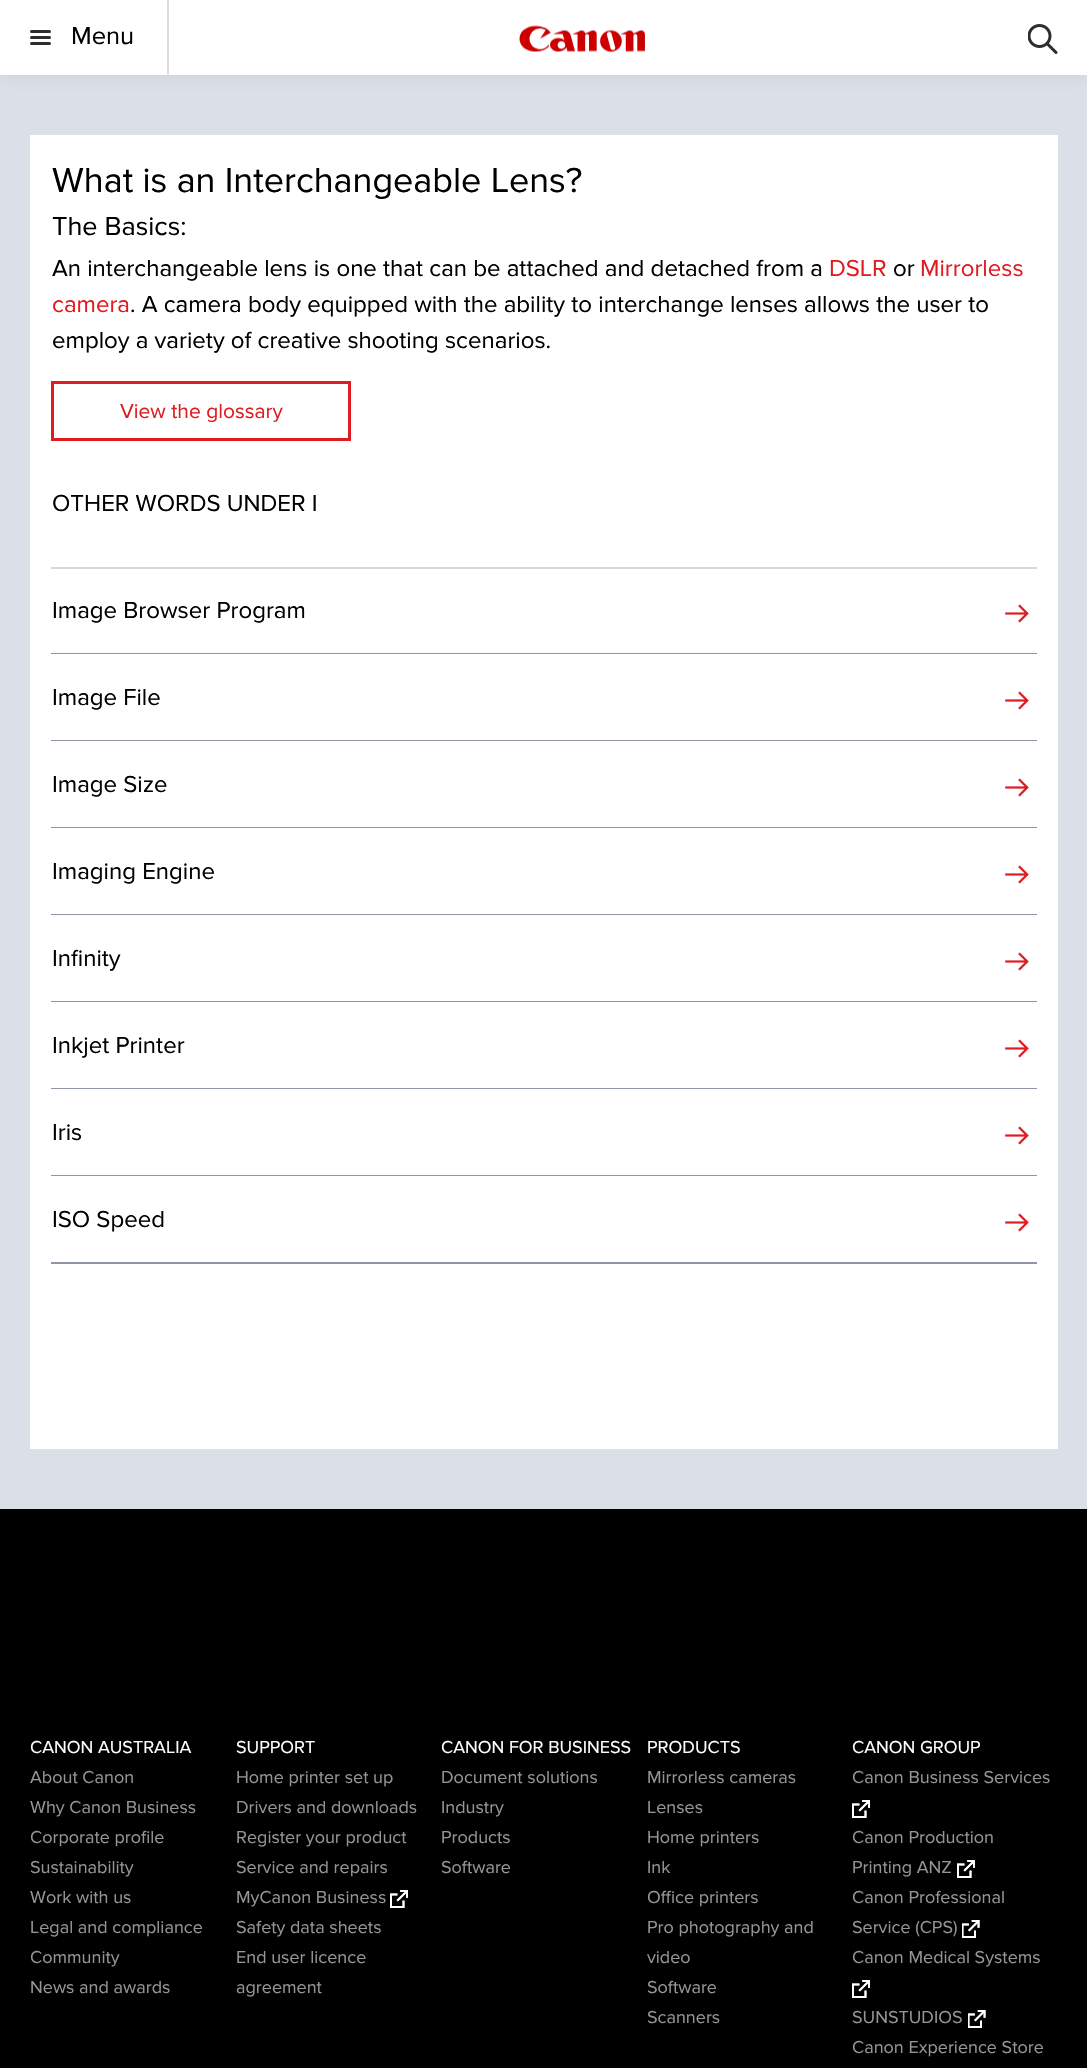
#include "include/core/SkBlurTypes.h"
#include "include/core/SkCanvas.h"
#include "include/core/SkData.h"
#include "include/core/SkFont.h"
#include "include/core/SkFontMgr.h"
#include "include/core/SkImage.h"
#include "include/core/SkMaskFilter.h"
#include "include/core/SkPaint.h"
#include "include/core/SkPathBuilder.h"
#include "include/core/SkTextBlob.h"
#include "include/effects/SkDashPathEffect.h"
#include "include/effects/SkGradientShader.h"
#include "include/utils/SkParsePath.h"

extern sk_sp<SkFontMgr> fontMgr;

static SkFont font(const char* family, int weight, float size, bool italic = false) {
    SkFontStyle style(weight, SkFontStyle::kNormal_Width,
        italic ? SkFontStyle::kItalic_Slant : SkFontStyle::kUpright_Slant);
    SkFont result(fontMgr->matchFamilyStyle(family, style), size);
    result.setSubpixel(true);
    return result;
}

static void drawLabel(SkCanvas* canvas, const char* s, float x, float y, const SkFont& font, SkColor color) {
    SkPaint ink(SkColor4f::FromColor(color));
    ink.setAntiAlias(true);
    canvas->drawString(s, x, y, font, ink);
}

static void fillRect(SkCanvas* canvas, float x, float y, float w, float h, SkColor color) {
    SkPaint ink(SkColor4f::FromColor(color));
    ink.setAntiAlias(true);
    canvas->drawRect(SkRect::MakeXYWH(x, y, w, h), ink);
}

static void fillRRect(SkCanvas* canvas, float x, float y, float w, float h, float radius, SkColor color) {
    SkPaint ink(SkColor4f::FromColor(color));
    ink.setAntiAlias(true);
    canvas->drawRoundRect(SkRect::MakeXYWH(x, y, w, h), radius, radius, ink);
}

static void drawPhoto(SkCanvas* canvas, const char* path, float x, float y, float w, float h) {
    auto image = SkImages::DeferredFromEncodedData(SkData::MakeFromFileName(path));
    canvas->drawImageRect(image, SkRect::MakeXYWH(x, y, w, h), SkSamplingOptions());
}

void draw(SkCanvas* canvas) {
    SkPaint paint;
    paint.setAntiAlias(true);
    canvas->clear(0xFFFFFFFF);
    fillRect(canvas, 0, 75, 1087, 1434, 0xFFDBE0E8);
    canvas->save();
    canvas->clipRect(SkRect::MakeXYWH(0, 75, 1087, 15));
    paint.setColor(0x6BC1C0C0);
    paint.setMaskFilter(SkMaskFilter::MakeBlur(kNormal_SkBlurStyle, 7.5f));
    canvas->drawRect(SkRect::MakeXYWH(0, 3, 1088, 75), paint);
    paint.setMaskFilter(nullptr);
    canvas->restore();
    fillRect(canvas, 167, 0, 2, 75, 0xFFDDDDDD);
    fillRRect(canvas, 30, 30, 21, 3, 1.5f, 0xFF2D2D2D);
    fillRRect(canvas, 30, 36, 21, 3, 1.5f, 0xFF2D2D2D);
    fillRRect(canvas, 30, 42, 21, 3, 1.5f, 0xFF2D2D2D);
    SkFont font1 = font("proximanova", 400, 25.5f);
    drawLabel(canvas, "Menu", 71, 44, font1, 0xFF000000);
    drawPhoto(canvas, "assets/img1.png", 519, 25, 126, 28);
    drawPhoto(canvas, "assets/img2.png", 1028, 24, 30, 30);
    fillRect(canvas, 30, 135, 1028, 1314, 0xFFFFFFFF);
    SkFont font2 = font("proximanova", 400, 36);
    drawLabel(canvas, "What is an Interchangeable Lens?", 52, 192, font2, 0xFF000000);
    SkFont font3 = font("proximanova", 400, 27);
    drawLabel(canvas, "The Basics:", 52, 235, font3, 0xFF000000);
    SkFont font4 = font("proximanova", 400, 24);
    drawLabel(canvas, "An interchangeable lens is one that can be attached and detached from a", 52, 276, font4, 0xFF000000);
    drawLabel(canvas, "DSLR", 829, 276, font4, 0xFFE11B22);
    drawLabel(canvas, "or", 893, 276, font4, 0xFF000000);
    drawLabel(canvas, "Mirrorless", 920, 276, font4, 0xFFE11B22);
    drawLabel(canvas, "camera", 52, 312, font4, 0xFFE11B22);
    drawLabel(canvas, ". A camera body equipped with the ability to interchange lenses allows the user to", 130, 312, font4, 0xFF000000);
    drawLabel(canvas, "employ a variety of creative shooting scenarios.", 52, 348, font4, 0xFF000000);
    paint.setStroke(true);
    paint.setStrokeWidth(3);
    paint.setColor(0xFFE11B22);
    canvas->drawRect(SkRect::MakeXYWH(52.5f, 382.5f, 297, 57), paint);
    SkFont font5 = font("proximanova", 400, 21);
    drawLabel(canvas, "View the glossary", 120, 418, font5, 0xFFE11B22);
    drawLabel(canvas, "OTHER WORDS UNDER I", 52, 511, font4, 0xFF000000);
    fillRect(canvas, 51, 567, 986, 2, 0xFFD7D7D7);
    fillRect(canvas, 51, 653, 986, 1, 0xFF8E95A3);
    drawLabel(canvas, "Image Browser Program", 52, 618, font4, 0xFF000000);
    drawPhoto(canvas, "assets/img3.png", 1005, 604, 24, 19);
    fillRect(canvas, 51, 740, 986, 1, 0xFF8E95A3);
    drawLabel(canvas, "Image File", 52, 705, font4, 0xFF000000);
    drawPhoto(canvas, "assets/img3.png", 1005, 691, 24, 19);
    fillRect(canvas, 51, 827, 986, 1, 0xFF8E95A3);
    drawLabel(canvas, "Image Size", 52, 792, font4, 0xFF000000);
    drawPhoto(canvas, "assets/img3.png", 1005, 778, 24, 19);
    fillRect(canvas, 51, 914, 986, 1, 0xFF8E95A3);
    drawLabel(canvas, "Imaging Engine", 52, 879, font4, 0xFF000000);
    drawPhoto(canvas, "assets/img3.png", 1005, 865, 24, 19);
    fillRect(canvas, 51, 1001, 986, 1, 0xFF8E95A3);
    drawLabel(canvas, "Infinity", 52, 966, font4, 0xFF000000);
    drawPhoto(canvas, "assets/img3.png", 1005, 952, 24, 19);
    fillRect(canvas, 51, 1088, 986, 1, 0xFF8E95A3);
    drawLabel(canvas, "Inkjet Printer", 52, 1053, font4, 0xFF000000);
    drawPhoto(canvas, "assets/img3.png", 1005, 1039, 24, 19);
    fillRect(canvas, 51, 1175, 986, 1, 0xFF8E95A3);
    drawLabel(canvas, "Iris", 52, 1140, font4, 0xFF000000);
    drawPhoto(canvas, "assets/img3.png", 1005, 1126, 24, 19);
    fillRect(canvas, 51, 1262, 986, 2, 0xFF8E95A3);
    drawLabel(canvas, "ISO Speed", 52, 1227, font4, 0xFF000000);
    drawPhoto(canvas, "assets/img3.png", 1005, 1213, 24, 19);
    fillRect(canvas, 0, 1509, 1087, 559, 0xFF000000);
    SkFont font6 = font("proximanova", 400, 18);
    drawLabel(canvas, "CANON AUSTRALIA", 30, 1753, font6, 0xFFFFFFFF);
    drawLabel(canvas, "About Canon", 30, 1783, font6, 0xFF959595);
    drawLabel(canvas, "Why Canon Business", 30, 1813, font6, 0xFF959595);
    drawLabel(canvas, "Corporate profile", 30, 1843, font6, 0xFF959595);
    drawLabel(canvas, "Sustainability", 30, 1873, font6, 0xFF959595);
    drawLabel(canvas, "Work with us", 30, 1903, font6, 0xFF959595);
    drawLabel(canvas, "Legal and compliance", 30, 1933, font6, 0xFF959595);
    drawLabel(canvas, "Community", 30, 1963, font6, 0xFF959595);
    drawLabel(canvas, "News and awards", 30, 1993, font6, 0xFF959595);
    drawLabel(canvas, "SUPPORT", 236, 1753, font6, 0xFFFFFFFF);
    drawLabel(canvas, "Home printer set up", 236, 1783, font6, 0xFF959595);
    drawLabel(canvas, "Drivers and downloads", 236, 1813, font6, 0xFF959595);
    drawLabel(canvas, "Register your product", 236, 1843, font6, 0xFF959595);
    drawLabel(canvas, "Service and repairs", 236, 1873, font6, 0xFF959595);
    drawLabel(canvas, "MyCanon Business", 236, 1903, font6, 0xFF959595);
    drawPhoto(canvas, "assets/img4.png", 390, 1890, 18, 18);
    drawPhoto(canvas, "assets/img5.png", 390, 1890, 18, 18);
    drawLabel(canvas, "Safety data sheets", 236, 1933, font6, 0xFF959595);
    drawLabel(canvas, "End user licence", 236, 1963, font6, 0xFF959595);
    drawLabel(canvas, "agreement", 236, 1993, font6, 0xFF959595);
    drawLabel(canvas, "CANON FOR BUSINESS", 441, 1753, font6, 0xFFFFFFFF);
    drawLabel(canvas, "Document solutions", 441, 1783, font6, 0xFF959595);
    drawLabel(canvas, "Industry", 441, 1813, font6, 0xFF959595);
    drawLabel(canvas, "Products", 441, 1843, font6, 0xFF959595);
    drawLabel(canvas, "Software", 441, 1873, font6, 0xFF959595);
    drawLabel(canvas, "PRODUCTS", 647, 1753, font6, 0xFFFFFFFF);
    drawLabel(canvas, "Mirrorless cameras", 647, 1783, font6, 0xFF959595);
    drawLabel(canvas, "Lenses", 647, 1813, font6, 0xFF959595);
    drawLabel(canvas, "Home printers", 647, 1843, font6, 0xFF959595);
    drawLabel(canvas, "Ink", 647, 1873, font6, 0xFF959595);
    drawLabel(canvas, "Office printers", 647, 1903, font6, 0xFF959595);
    drawLabel(canvas, "Pro photography and", 647, 1933, font6, 0xFF959595);
    drawLabel(canvas, "video", 647, 1963, font6, 0xFF959595);
    drawLabel(canvas, "Software", 647, 1993, font6, 0xFF959595);
    drawLabel(canvas, "Scanners", 647, 2023, font6, 0xFF959595);
    drawLabel(canvas, "CANON GROUP", 852, 1753, font6, 0xFFFFFFFF);
    drawLabel(canvas, "Canon Business Services", 852, 1783, font6, 0xFF959595);
    drawPhoto(canvas, "assets/img4.png", 852, 1800, 18, 18);
    drawPhoto(canvas, "assets/img5.png", 852, 1800, 18, 18);
    drawLabel(canvas, "Canon Production", 852, 1843, font6, 0xFF959595);
    drawPhoto(canvas, "assets/img4.png", 957, 1860, 18, 18);
    drawLabel(canvas, "Printing ANZ", 852, 1873, font6, 0xFF959595);
    drawPhoto(canvas, "assets/img5.png", 957, 1860, 18, 18);
    drawLabel(canvas, "Canon Professional", 852, 1903, font6, 0xFF959595);
    drawLabel(canvas, "Service (CPS)", 852, 1933, font6, 0xFF959595);
    drawPhoto(canvas, "assets/img6.png", 962, 1920, 18, 18);
    drawPhoto(canvas, "assets/img7.png", 962, 1920, 18, 18);
    drawLabel(canvas, "Canon Medical Systems", 852, 1963, font6, 0xFF959595);
    drawPhoto(canvas, "assets/img4.png", 852, 1980, 18, 18);
    drawPhoto(canvas, "assets/img5.png", 852, 1980, 18, 18);
    drawLabel(canvas, "SUNSTUDIOS", 852, 2023, font6, 0xFF959595);
    drawPhoto(canvas, "assets/img6.png", 968, 2010, 18, 18);
    drawPhoto(canvas, "assets/img7.png", 968, 2010, 18, 18);
    drawLabel(canvas, "Canon Experience Store", 852, 2053, font6, 0xFF959595);
}
